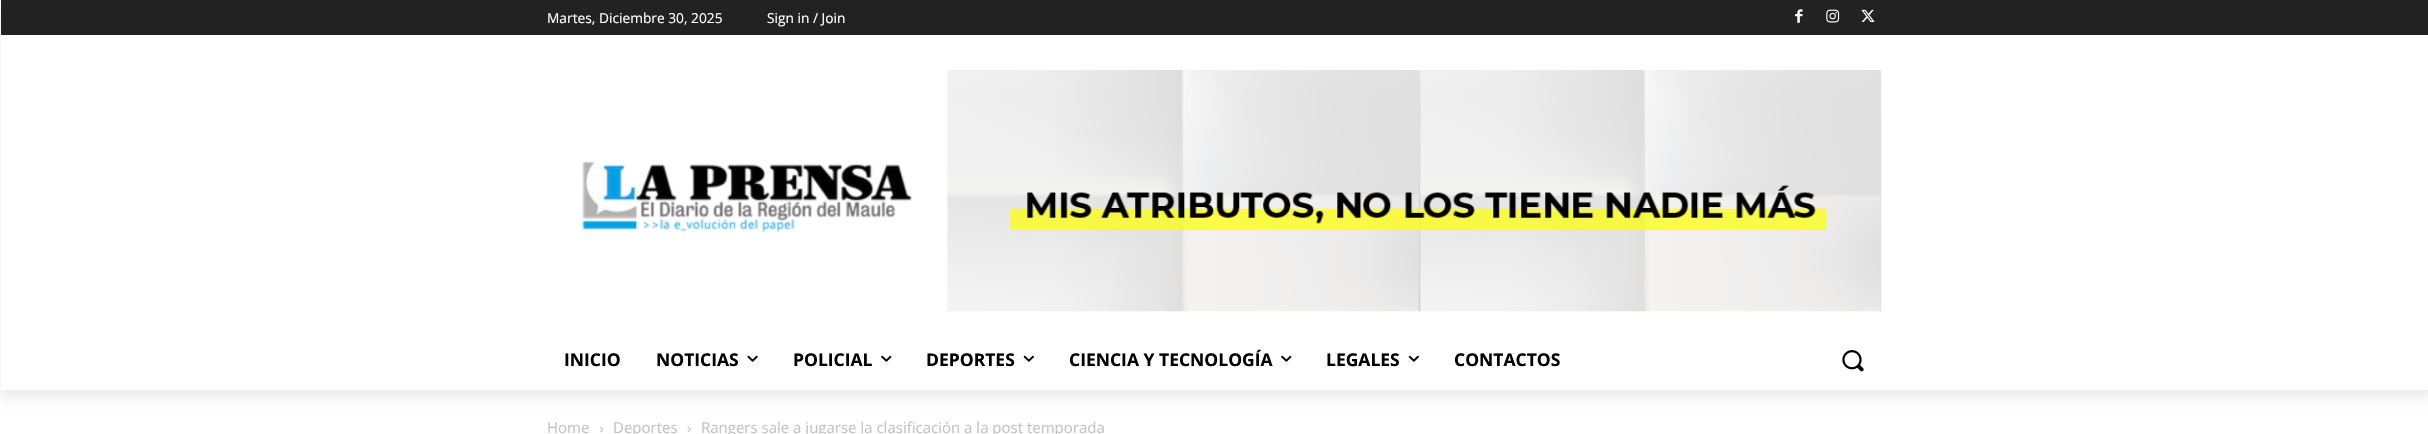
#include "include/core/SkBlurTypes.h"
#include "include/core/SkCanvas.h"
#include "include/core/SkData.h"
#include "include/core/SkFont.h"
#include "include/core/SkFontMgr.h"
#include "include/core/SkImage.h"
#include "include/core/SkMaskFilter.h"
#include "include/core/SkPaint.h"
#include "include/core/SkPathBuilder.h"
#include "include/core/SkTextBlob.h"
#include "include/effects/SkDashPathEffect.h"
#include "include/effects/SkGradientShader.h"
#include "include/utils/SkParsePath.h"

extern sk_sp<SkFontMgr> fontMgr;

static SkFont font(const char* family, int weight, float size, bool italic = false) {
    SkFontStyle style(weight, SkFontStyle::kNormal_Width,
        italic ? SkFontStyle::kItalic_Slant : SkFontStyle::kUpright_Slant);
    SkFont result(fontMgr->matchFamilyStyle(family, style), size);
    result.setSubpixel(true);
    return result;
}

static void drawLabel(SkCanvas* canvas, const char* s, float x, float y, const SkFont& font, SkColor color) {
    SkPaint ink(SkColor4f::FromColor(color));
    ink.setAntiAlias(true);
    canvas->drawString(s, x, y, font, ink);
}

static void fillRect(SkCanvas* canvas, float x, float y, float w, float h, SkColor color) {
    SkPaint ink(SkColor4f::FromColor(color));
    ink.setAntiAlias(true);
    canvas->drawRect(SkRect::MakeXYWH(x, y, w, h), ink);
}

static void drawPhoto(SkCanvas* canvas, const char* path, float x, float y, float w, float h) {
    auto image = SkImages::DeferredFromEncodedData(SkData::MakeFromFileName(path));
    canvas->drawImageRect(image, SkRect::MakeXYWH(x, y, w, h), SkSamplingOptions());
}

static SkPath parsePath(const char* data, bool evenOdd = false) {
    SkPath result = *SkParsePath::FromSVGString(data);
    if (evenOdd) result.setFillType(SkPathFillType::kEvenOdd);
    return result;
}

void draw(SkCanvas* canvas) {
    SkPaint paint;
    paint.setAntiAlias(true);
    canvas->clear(0xFFFFFFFF);
    fillRect(canvas, 1, 0, 2427, 35, 0xFF222222);
    drawPhoto(canvas, "assets/img1.png", 1795, 9, 8, 14);
    drawPhoto(canvas, "assets/img2.png", 1826, 9, 14, 14);
    drawPhoto(canvas, "assets/img3.png", 1861, 9, 14, 13);
    drawPhoto(canvas, "assets/img4.png", 582, 161, 330, 71);
    drawPhoto(canvas, "assets/img5.png", 947, 70, 935, 242);
    canvas->save();
    canvas->clipPath(parsePath("M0 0H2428V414H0ZM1 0H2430V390H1Z", true), true);
    paint.setColor(0x14000000);
    paint.setMaskFilter(SkMaskFilter::MakeBlur(kNormal_SkBlurStyle, 5));
    canvas->drawRect(SkRect::MakeXYWH(1, 8, 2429, 390), paint);
    paint.setMaskFilter(nullptr);
    canvas->restore();
    SkFont font1 = font("Open Sans", 400, 13.75f);
    drawLabel(canvas, "Martes, Diciembre 30, 2025", 547, 23, font1, 0xFFFFFFFF);
    drawLabel(canvas, "Sign in / Join", 767, 23, font1, 0xFFFFFFFF);
    SkFont font2 = font("Open Sans", 700, 17.5f);
    drawLabel(canvas, "INICIO", 564, 366, font2, 0xFF000000);
    drawLabel(canvas, "NOTICIAS", 656, 366, font2, 0xFF000000);
    drawPhoto(canvas, "assets/img6.png", 747, 355, 11, 7);
    drawLabel(canvas, "POLICIAL", 793, 366, font2, 0xFF000000);
    drawPhoto(canvas, "assets/img7.png", 881, 355, 11, 7);
    drawLabel(canvas, "DEPORTES", 926, 366, font2, 0xFF000000);
    drawPhoto(canvas, "assets/img8.png", 1023, 355, 11, 7);
    drawLabel(canvas, "CIENCIA Y TECNOLOGÍA", 1069, 366, font2, 0xFF000000);
    drawPhoto(canvas, "assets/img7.png", 1281, 355, 11, 7);
    drawLabel(canvas, "LEGALES", 1326, 366, font2, 0xFF000000);
    drawPhoto(canvas, "assets/img8.png", 1408, 355, 11, 7);
    drawLabel(canvas, "CONTACTOS", 1454, 366, font2, 0xFF000000);
    drawPhoto(canvas, "assets/img9.png", 1842, 350, 22, 22);
    SkFont font3 = font("Open Sans", 400, 15);
    drawLabel(canvas, "Home", 547, 433, font3, 0xFFC3C3C3);
    drawPhoto(canvas, "assets/img10.png", 600, 426, 4, 7);
    drawLabel(canvas, "Deportes", 613, 433, font3, 0xFFC3C3C3);
    drawPhoto(canvas, "assets/img11.png", 687, 426, 4, 7);
    drawLabel(canvas, "Rangers sale a jugarse la clasificación a la post temporada", 701, 433, font3, 0xFFC3C3C3);
}
